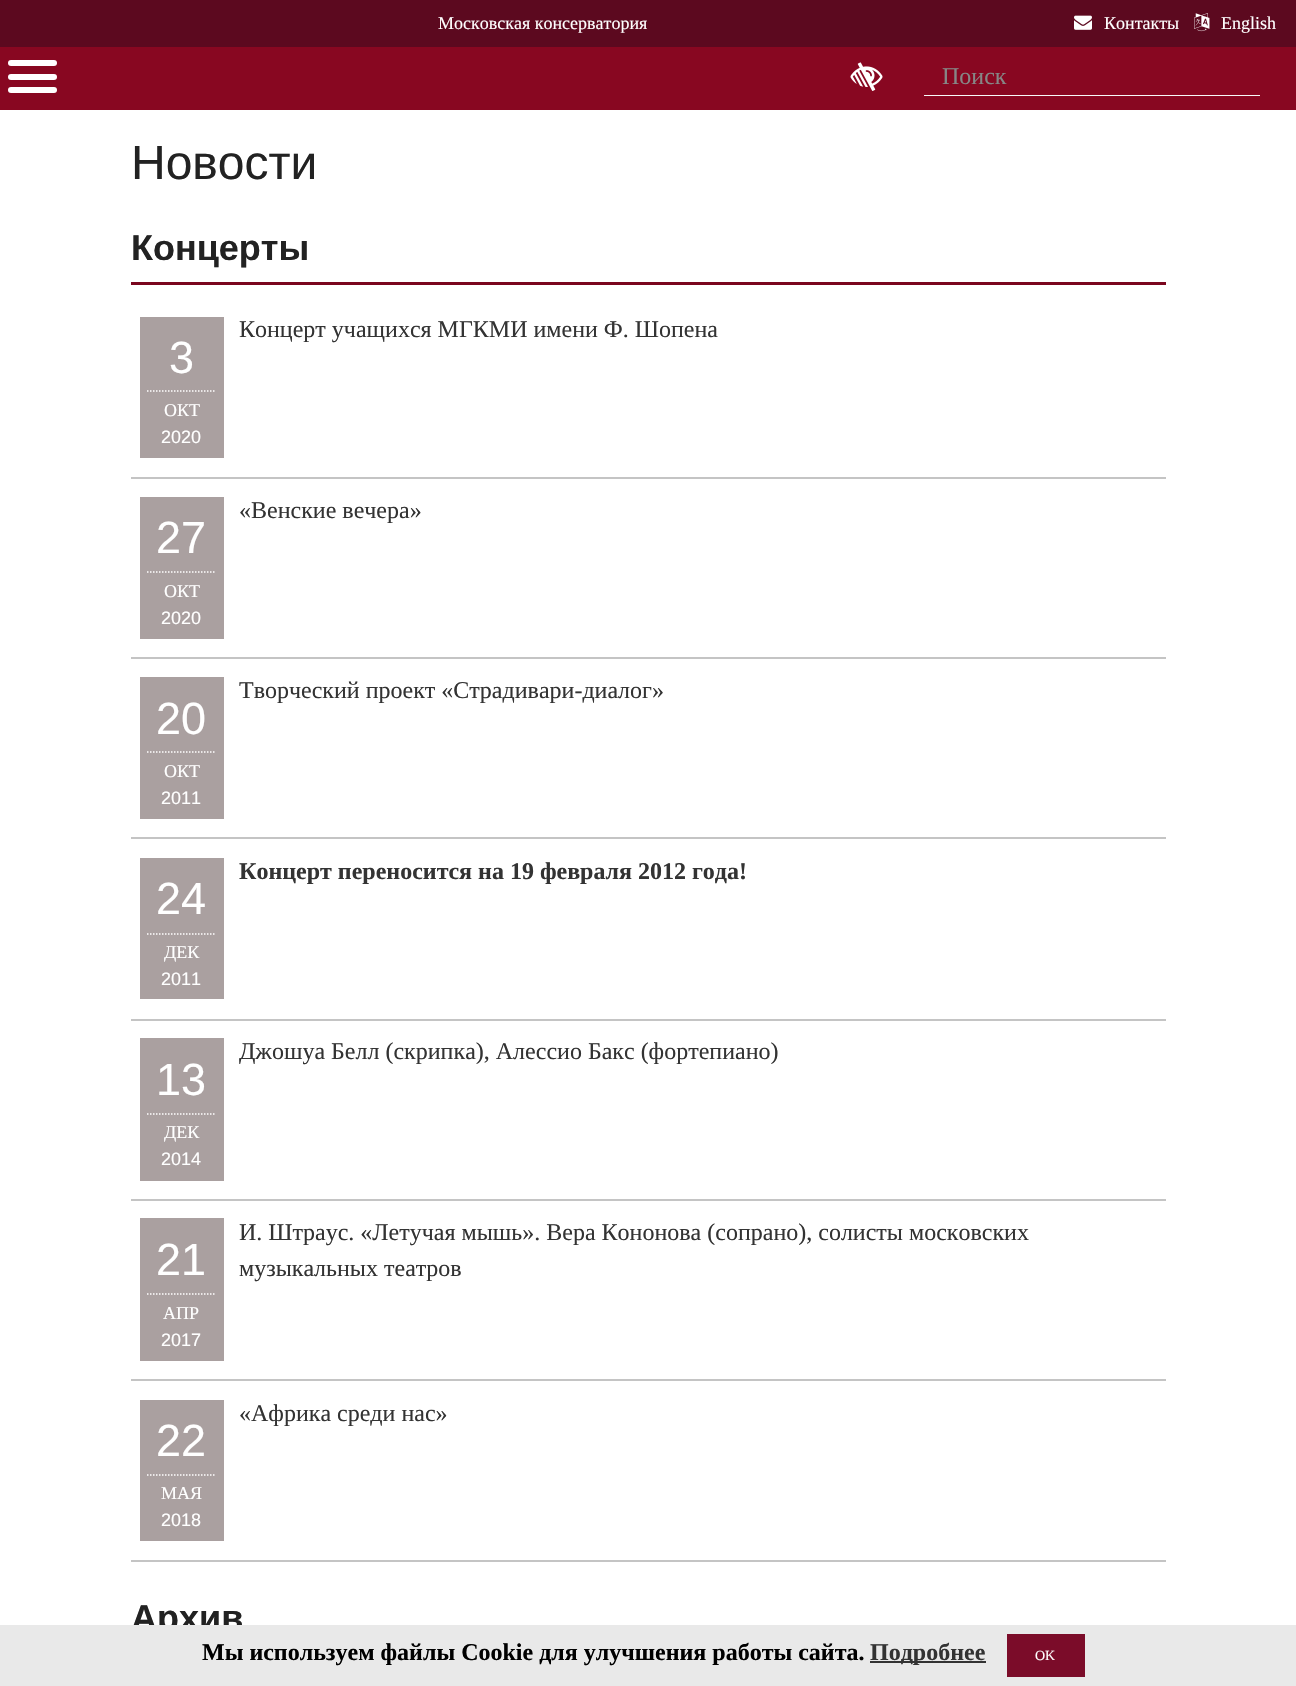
#include "include/core/SkBlurTypes.h"
#include "include/core/SkCanvas.h"
#include "include/core/SkData.h"
#include "include/core/SkFont.h"
#include "include/core/SkFontMgr.h"
#include "include/core/SkImage.h"
#include "include/core/SkMaskFilter.h"
#include "include/core/SkPaint.h"
#include "include/core/SkPathBuilder.h"
#include "include/core/SkTextBlob.h"
#include "include/effects/SkDashPathEffect.h"
#include "include/effects/SkGradientShader.h"
#include "include/utils/SkParsePath.h"

extern sk_sp<SkFontMgr> fontMgr;

static SkFont font(const char* family, int weight, float size, bool italic = false) {
    SkFontStyle style(weight, SkFontStyle::kNormal_Width,
        italic ? SkFontStyle::kItalic_Slant : SkFontStyle::kUpright_Slant);
    SkFont result(fontMgr->matchFamilyStyle(family, style), size);
    result.setSubpixel(true);
    return result;
}

static void drawLabel(SkCanvas* canvas, const char* s, float x, float y, const SkFont& font, SkColor color) {
    SkPaint ink(SkColor4f::FromColor(color));
    ink.setAntiAlias(true);
    canvas->drawString(s, x, y, font, ink);
}

static void fillRect(SkCanvas* canvas, float x, float y, float w, float h, SkColor color) {
    SkPaint ink(SkColor4f::FromColor(color));
    ink.setAntiAlias(true);
    canvas->drawRect(SkRect::MakeXYWH(x, y, w, h), ink);
}

static void fillRRect(SkCanvas* canvas, float x, float y, float w, float h, float radius, SkColor color) {
    SkPaint ink(SkColor4f::FromColor(color));
    ink.setAntiAlias(true);
    canvas->drawRoundRect(SkRect::MakeXYWH(x, y, w, h), radius, radius, ink);
}

static void drawPhoto(SkCanvas* canvas, const char* path, float x, float y, float w, float h) {
    auto image = SkImages::DeferredFromEncodedData(SkData::MakeFromFileName(path));
    canvas->drawImageRect(image, SkRect::MakeXYWH(x, y, w, h), SkSamplingOptions());
}

static SkPath parsePath(const char* data, bool evenOdd = false) {
    SkPath result = *SkParsePath::FromSVGString(data);
    if (evenOdd) result.setFillType(SkPathFillType::kEvenOdd);
    return result;
}

void draw(SkCanvas* canvas) {
    SkPaint paint;
    paint.setAntiAlias(true);
    canvas->clear(0xFFFFFFFF);
    fillRect(canvas, 0, 0, 1296, 47, 0xFF5C091F);
    SkFont font1 = font("Liberation Serif", 400, 18);
    drawLabel(canvas, "Московская консерватория", 438, 29, font1, 0xFFFFFFFF);
    drawPhoto(canvas, "assets/img1.png", 1074, 15, 18, 15);
    drawLabel(canvas, "Контакты", 1104, 29, font1, 0xFFFFFFFF);
    drawPhoto(canvas, "assets/img2.png", 1194, 13, 16, 19);
    drawLabel(canvas, "English", 1221, 29, font1, 0xFFFFFFFF);
    fillRect(canvas, 0, 47, 1296, 63, 0xFF880721);
    fillRRect(canvas, 8, 60, 49, 6, 3, 0xFFFFFFFF);
    fillRRect(canvas, 8, 74, 49, 6, 3, 0xFFFFFFFF);
    fillRRect(canvas, 8, 87, 49, 6, 3, 0xFFFFFFFF);
    drawPhoto(canvas, "assets/img3.png", 850, 62, 33, 29);
    fillRect(canvas, 924, 95, 336, 1, 0xFFF8F8F8);
    SkFont font2 = font("Liberation Serif", 400, 24);
    drawLabel(canvas, "Поиск", 942, 84, font2, 0xFF868686);
    SkFont font3 = font("Liberation Sans", 400, 48);
    drawLabel(canvas, "Новости", 131, 179, font3, 0xFF222222);
    SkFont font4 = font("Liberation Sans", 700, 36);
    drawLabel(canvas, "Концерты", 131, 260, font4, 0xFF222222);
    fillRect(canvas, 131, 282, 1035, 3, 0xFF7A061E);
    fillRect(canvas, 131, 477, 1035, 2, 0xFFC4C4C4);
    drawLabel(canvas, "Концерт учащихся МГКМИ имени Ф. Шопена", 239, 337, font2, 0xFF333333);
    fillRect(canvas, 140, 317, 84, 141, 0xFFAAA0A0);
    paint.setStroke(true);
    paint.setStrokeWidth(1.5f);
    paint.setColor(0xFFFFFFFF);
    paint.setPathEffect(SkDashPathEffect::Make({{1.5f, 1.5f}}, 0));
    canvas->drawPath(parsePath("M147 391H216"), paint);
    paint.setPathEffect(nullptr);
    SkFont font5 = font("Liberation Sans", 400, 45);
    drawLabel(canvas, "3", 169, 373, font5, 0xFFFFFFFF);
    drawLabel(canvas, "ОКТ", 164, 416, font1, 0xFFFFFFFF);
    SkFont font6 = font("Liberation Sans", 400, 18);
    drawLabel(canvas, "2020", 161, 443, font6, 0xFFFFFFFF);
    fillRect(canvas, 131, 657, 1035, 2, 0xFFC4C4C4);
    drawLabel(canvas, "«Венские вечера»", 239, 518, font2, 0xFF333333);
    fillRect(canvas, 140, 497, 84, 142, 0xFFAAA0A0);
    paint.setPathEffect(SkDashPathEffect::Make({{1.5f, 1.5f}}, 0));
    canvas->drawPath(parsePath("M147 572H216"), paint);
    paint.setPathEffect(nullptr);
    drawLabel(canvas, "27", 156, 553, font5, 0xFFFFFFFF);
    drawLabel(canvas, "ОКТ", 164, 597, font1, 0xFFFFFFFF);
    drawLabel(canvas, "2020", 161, 624, font6, 0xFFFFFFFF);
    fillRect(canvas, 131, 837, 1035, 2, 0xFFC4C4C4);
    drawLabel(canvas, "Творческий проект «Страдивари-диалог»", 239, 698, font2, 0xFF333333);
    fillRect(canvas, 140, 677, 84, 142, 0xFFAAA0A0);
    paint.setPathEffect(SkDashPathEffect::Make({{1.5f, 1.5f}}, 0));
    canvas->drawPath(parsePath("M147 752H216"), paint);
    paint.setPathEffect(nullptr);
    drawLabel(canvas, "20", 156, 734, font5, 0xFFFFFFFF);
    drawLabel(canvas, "ОКТ", 164, 777, font1, 0xFFFFFFFF);
    drawLabel(canvas, "2011", 161, 804, font6, 0xFFFFFFFF);
    fillRect(canvas, 131, 1019, 1035, 2, 0xFFC4C4C4);
    SkFont font7 = font("Liberation Serif", 700, 24);
    drawLabel(canvas, "Концерт переносится на 19 февраля 2012 года!", 239, 879, font7, 0xFF333333);
    fillRect(canvas, 140, 858, 84, 141, 0xFFAAA0A0);
    paint.setPathEffect(SkDashPathEffect::Make({{1.5f, 1.5f}}, 0));
    canvas->drawPath(parsePath("M147 934H216"), paint);
    paint.setPathEffect(nullptr);
    drawLabel(canvas, "24", 156, 914, font5, 0xFFFFFFFF);
    drawLabel(canvas, "ДЕК", 164, 958, font1, 0xFFFFFFFF);
    drawLabel(canvas, "2011", 161, 985, font6, 0xFFFFFFFF);
    fillRect(canvas, 131, 1199, 1035, 2, 0xFFC4C4C4);
    drawLabel(canvas, "Джошуа Белл (скрипка), Алессио Бакс (фортепиано)", 239, 1059, font2, 0xFF333333);
    fillRect(canvas, 140, 1038, 84, 143, 0xFFAAA0A0);
    paint.setPathEffect(SkDashPathEffect::Make({{1.5f, 1.5f}}, 0));
    canvas->drawPath(parsePath("M147 1114H216"), paint);
    paint.setPathEffect(nullptr);
    drawLabel(canvas, "13", 156, 1095, font5, 0xFFFFFFFF);
    drawLabel(canvas, "ДЕК", 164, 1138, font1, 0xFFFFFFFF);
    drawLabel(canvas, "2014", 161, 1165, font6, 0xFFFFFFFF);
    fillRect(canvas, 131, 1379, 1035, 2, 0xFFC4C4C4);
    fillRect(canvas, 140, 1218, 84, 143, 0xFFAAA0A0);
    paint.setPathEffect(SkDashPathEffect::Make({{1.5f, 1.5f}}, 0));
    canvas->drawPath(parsePath("M147 1294H216"), paint);
    paint.setPathEffect(nullptr);
    drawLabel(canvas, "21", 156, 1275, font5, 0xFFFFFFFF);
    drawLabel(canvas, "АПР", 163, 1319, font1, 0xFFFFFFFF);
    drawLabel(canvas, "2017", 161, 1346, font6, 0xFFFFFFFF);
    drawLabel(canvas, "И. Штраус. «Летучая мышь». Вера Кононова (сопрано), солисты московских", 239, 1240, font2, 0xFF333333);
    drawLabel(canvas, "музыкальных театров", 239, 1276, font2, 0xFF333333);
    fillRect(canvas, 131, 1560, 1035, 2, 0xFFC4C4C4);
    drawLabel(canvas, "«Африка среди нас»", 239, 1421, font2, 0xFF333333);
    fillRect(canvas, 140, 1400, 84, 141, 0xFFAAA0A0);
    paint.setPathEffect(SkDashPathEffect::Make({{1.5f, 1.5f}}, 0));
    canvas->drawPath(parsePath("M147 1475H216"), paint);
    paint.setPathEffect(nullptr);
    drawLabel(canvas, "22", 156, 1456, font5, 0xFFFFFFFF);
    drawLabel(canvas, "МАЯ", 161, 1499, font1, 0xFFFFFFFF);
    drawLabel(canvas, "2018", 161, 1526, font6, 0xFFFFFFFF);
    drawLabel(canvas, "Архив", 131, 1630, font4, 0xFF222222);
    fillRect(canvas, 0, 1625, 1296, 61, 0xFFE9E9E9);
    drawLabel(canvas, "Мы используем файлы Cookie для улучшения работы сайта.", 202, 1660, font7, 0xFF000000);
    fillRect(canvas, 870, 1661, 116, 2, 0xFF333333);
    drawLabel(canvas, "Подробнее", 870, 1660, font7, 0xFF333333);
    fillRect(canvas, 1007, 1634, 78, 43, 0xFF7B0C29);
    SkFont font8 = font("Liberation Serif", 400, 14);
    drawLabel(canvas, "OK", 1035, 1660, font8, 0xFFFFFFFF);
}
